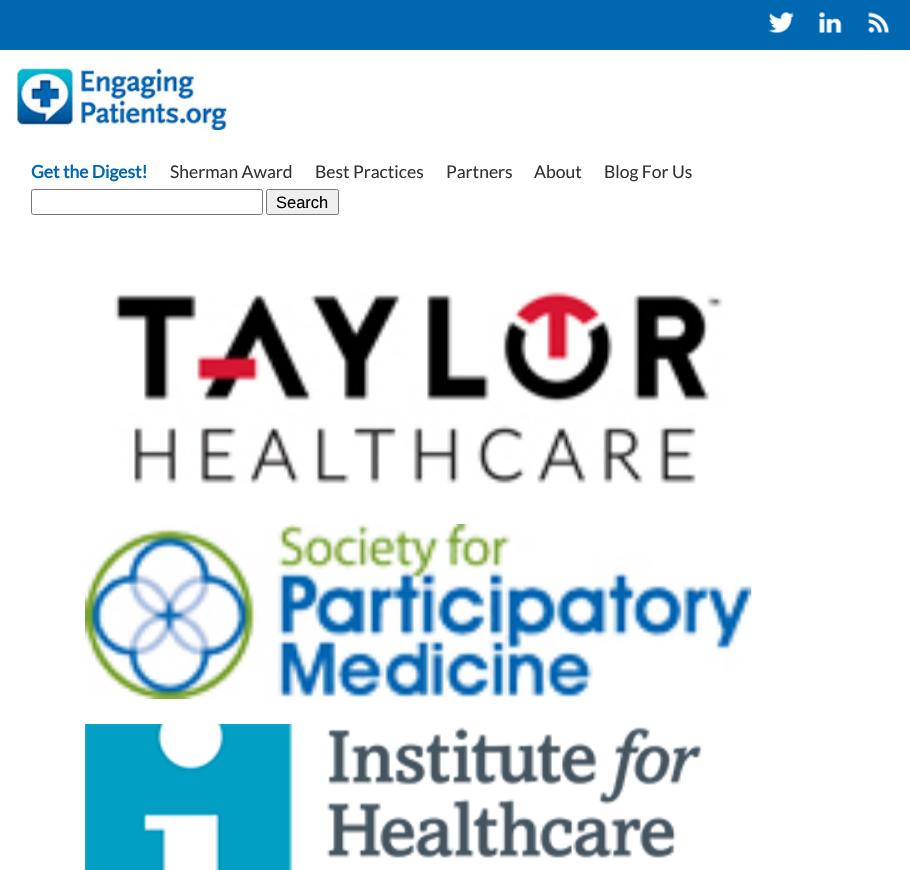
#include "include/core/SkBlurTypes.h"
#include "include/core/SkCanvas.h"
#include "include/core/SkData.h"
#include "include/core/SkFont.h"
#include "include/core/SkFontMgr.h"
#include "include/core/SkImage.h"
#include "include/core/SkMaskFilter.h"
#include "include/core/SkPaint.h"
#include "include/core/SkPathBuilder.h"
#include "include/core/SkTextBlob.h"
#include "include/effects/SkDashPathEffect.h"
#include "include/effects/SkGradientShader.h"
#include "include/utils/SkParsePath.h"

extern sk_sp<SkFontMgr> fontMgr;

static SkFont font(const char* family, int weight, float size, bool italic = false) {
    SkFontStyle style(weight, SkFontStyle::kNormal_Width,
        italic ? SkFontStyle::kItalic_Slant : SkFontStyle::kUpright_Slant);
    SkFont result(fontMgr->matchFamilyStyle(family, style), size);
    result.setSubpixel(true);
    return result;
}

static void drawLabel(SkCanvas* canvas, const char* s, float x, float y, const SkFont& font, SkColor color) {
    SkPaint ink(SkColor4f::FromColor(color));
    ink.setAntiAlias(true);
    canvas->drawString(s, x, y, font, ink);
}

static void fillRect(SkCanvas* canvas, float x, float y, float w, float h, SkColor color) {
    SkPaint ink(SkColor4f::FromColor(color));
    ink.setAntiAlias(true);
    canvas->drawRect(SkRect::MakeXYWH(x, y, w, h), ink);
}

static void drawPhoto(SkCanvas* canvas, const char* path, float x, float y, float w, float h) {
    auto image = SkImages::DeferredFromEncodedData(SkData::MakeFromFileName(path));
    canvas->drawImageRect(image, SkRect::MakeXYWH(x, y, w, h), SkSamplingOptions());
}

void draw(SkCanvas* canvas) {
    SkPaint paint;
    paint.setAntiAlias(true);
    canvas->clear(0xFFFFFFFF);
    fillRect(canvas, 0, 0, 910, 50, 0xFF0068B1);
    drawPhoto(canvas, "assets/img1.png", 768, 12, 26, 21);
    drawPhoto(canvas, "assets/img2.png", 819, 12, 23, 21);
    drawPhoto(canvas, "assets/img3.png", 868, 12, 22, 21);
    drawPhoto(canvas, "assets/img4.png", 17, 67, 210, 63);
    SkFont font1 = font("Lato", 700, 17.5f);
    drawLabel(canvas, "Get the Digest!", 31, 178, font1, 0xFF0068B1);
    SkFont font2 = font("Lato", 400, 17.5f);
    drawLabel(canvas, "Sherman Award", 170, 178, font2, 0xFF333333);
    drawLabel(canvas, "Best Practices", 315, 178, font2, 0xFF333333);
    drawLabel(canvas, "Partners", 446, 178, font2, 0xFF333333);
    drawLabel(canvas, "About", 534, 178, font2, 0xFF333333);
    drawLabel(canvas, "Blog For Us", 604, 178, font2, 0xFF333333);
    paint.setStroke(true);
    paint.setStrokeWidth(1);
    paint.setColor(0xFF767676);
    canvas->drawRoundRect(SkRect::MakeXYWH(31.5f, 189.5f, 231, 25), 2, 2, paint);
    paint.setStroke(false);
    paint.setColor(0xFFEFEFEF);
    canvas->drawRoundRect(SkRect::MakeXYWH(266.5f, 189.5f, 72, 25), 2, 2, paint);
    paint.setStroke(true);
    paint.setColor(0xFF767676);
    canvas->drawRoundRect(SkRect::MakeXYWH(266.5f, 189.5f, 72, 25), 2, 2, paint);
    SkFont font3 = font("Liberation Sans", 400, 16.5f);
    drawLabel(canvas, "Search", 276, 208, font3, 0xFF000000);
    drawPhoto(canvas, "assets/img5.png", 114, 291, 609, 193);
    drawPhoto(canvas, "assets/img6.png", 85, 524, 667, 175);
    drawPhoto(canvas, "assets/img7.png", 85, 724, 618, 146);
}
